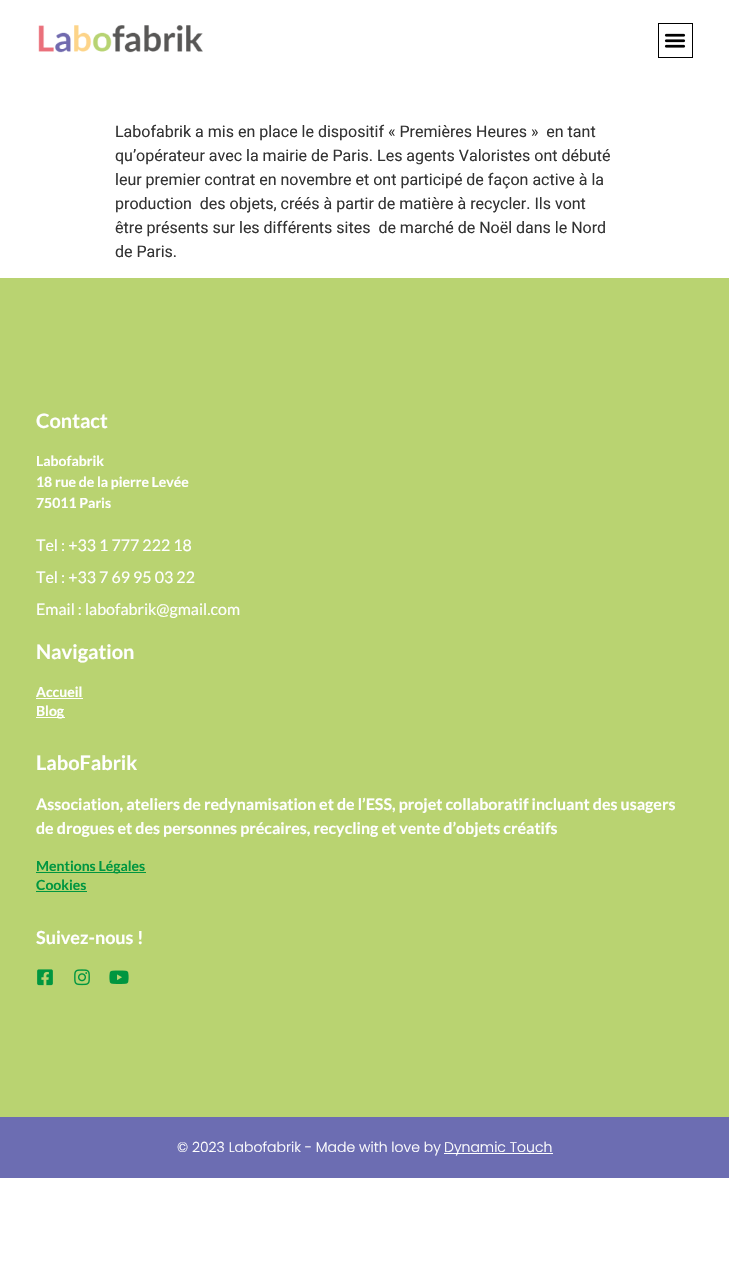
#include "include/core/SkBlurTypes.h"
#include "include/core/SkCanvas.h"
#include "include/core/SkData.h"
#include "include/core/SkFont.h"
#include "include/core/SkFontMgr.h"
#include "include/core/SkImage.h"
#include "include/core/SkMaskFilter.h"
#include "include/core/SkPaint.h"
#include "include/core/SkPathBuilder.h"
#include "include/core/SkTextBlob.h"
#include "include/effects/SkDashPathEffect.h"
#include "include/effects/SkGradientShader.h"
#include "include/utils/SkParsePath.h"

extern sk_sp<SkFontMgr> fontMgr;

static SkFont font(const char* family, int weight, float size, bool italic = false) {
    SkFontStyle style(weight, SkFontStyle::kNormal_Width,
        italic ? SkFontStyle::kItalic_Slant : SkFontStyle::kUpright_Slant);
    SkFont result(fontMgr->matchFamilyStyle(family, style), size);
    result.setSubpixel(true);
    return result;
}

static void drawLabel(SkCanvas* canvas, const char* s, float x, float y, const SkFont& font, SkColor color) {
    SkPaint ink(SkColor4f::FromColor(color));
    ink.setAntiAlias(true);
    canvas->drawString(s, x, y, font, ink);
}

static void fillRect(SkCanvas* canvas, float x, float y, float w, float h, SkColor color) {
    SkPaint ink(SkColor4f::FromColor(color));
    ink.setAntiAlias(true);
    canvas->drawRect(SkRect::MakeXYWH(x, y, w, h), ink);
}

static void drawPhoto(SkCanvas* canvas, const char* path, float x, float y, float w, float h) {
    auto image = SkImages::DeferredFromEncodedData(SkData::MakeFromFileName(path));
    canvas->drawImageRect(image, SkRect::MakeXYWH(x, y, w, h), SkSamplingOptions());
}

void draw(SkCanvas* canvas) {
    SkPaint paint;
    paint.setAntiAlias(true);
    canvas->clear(0xFFFFFFFF);
    drawPhoto(canvas, "assets/img1.png", 38, 25, 165, 28);
    paint.setStroke(true);
    paint.setStrokeWidth(1);
    paint.setColor(0xFF000000);
    canvas->drawRect(SkRect::MakeXYWH(658.5f, 23.5f, 34, 34), paint);
    drawPhoto(canvas, "assets/img2.png", 664, 33, 22, 15);
    SkFont font1 = font("Roboto", 400, 16);
    drawLabel(canvas, "Labofabrik a mis en place le dispositif « Premières Heures »  en tant", 115, 137, font1, 0xFF333333);
    drawLabel(canvas, "qu’opérateur avec la mairie de Paris. Les agents Valoristes ont débuté", 115, 161, font1, 0xFF333333);
    drawLabel(canvas, "leur premier contrat en novembre et ont participé de façon active à la", 115, 185, font1, 0xFF333333);
    drawLabel(canvas, "production  des objets, créés à partir de matière à recycler. Ils vont", 115, 209, font1, 0xFF333333);
    drawLabel(canvas, "être présents sur les différents sites  de marché de Noël dans le Nord", 115, 233, font1, 0xFF333333);
    drawLabel(canvas, "de Paris.", 115, 257, font1, 0xFF333333);
    fillRect(canvas, 0, 278, 729, 839, 0xFFB9D371);
    SkFont font2 = font("Lato", 700, 20);
    drawLabel(canvas, "Contact", 36, 428, font2, 0xFFFFFFFF);
    SkFont font3 = font("Lato", 700, 14);
    drawLabel(canvas, "Labofabrik", 36, 466, font3, 0xFFFFFFFF);
    drawLabel(canvas, "18 rue de la pierre Levée", 36, 487, font3, 0xFFFFFFFF);
    drawLabel(canvas, "75011 Paris", 36, 508, font3, 0xFFFFFFFF);
    SkFont font4 = font("Lato", 400, 16);
    drawLabel(canvas, "Tel : +33 1 777 222 18", 36, 551, font4, 0xFFFFFFFF);
    drawLabel(canvas, "Tel : +33 7 69 95 03 22", 36, 583, font4, 0xFFFFFFFF);
    drawLabel(canvas, "Email : labofabrik@gmail.com", 36, 615, font4, 0xFFFFFFFF);
    drawLabel(canvas, "Navigation", 36, 659, font2, 0xFFFFFFFF);
    drawLabel(canvas, "Accueil", 36, 697, font3, 0xFFFFFFFF);
    fillRect(canvas, 36, 698, 47, 1, 0xFFFFFFFF);
    fillRect(canvas, 36, 717, 29, 1, 0xFFFFFFFF);
    drawLabel(canvas, "Blog", 36, 716, font3, 0xFFFFFFFF);
    drawLabel(canvas, "LaboFabrik", 36, 770, font2, 0xFFFFFFFF);
    SkFont font5 = font("Lato", 700, 16);
    drawLabel(canvas, "Association, ateliers de redynamisation et de l’ESS, projet collaboratif incluant des usagers", 36, 810, font5, 0xFFFFFFFF);
    drawLabel(canvas, "de drogues et des personnes précaires, recycling et vente d’objets créatifs", 36, 834, font5, 0xFFFFFFFF);
    fillRect(canvas, 36, 872, 110, 1, 0xFF009640);
    drawLabel(canvas, "Mentions Légales", 36, 871, font3, 0xFF009640);
    drawLabel(canvas, "Cookies", 36, 890, font3, 0xFF009640);
    fillRect(canvas, 36, 891, 51, 1, 0xFF009640);
    SkFont font6 = font("Lato", 700, 18);
    drawLabel(canvas, "Suivez-nous !", 36, 944, font6, 0xFFFFFFFF);
    drawPhoto(canvas, "assets/img3.png", 37, 969, 16, 17);
    drawPhoto(canvas, "assets/img4.png", 74, 969, 16, 17);
    drawPhoto(canvas, "assets/img5.png", 109, 970, 20, 14);
    fillRect(canvas, 0, 1117, 729, 61, 0xFF6C6DB2);
    SkFont font7 = font("Poppins", 300, 14);
    drawLabel(canvas, "© 2023 Labofabrik - Made with love by", 177, 1152, font7, 0xFFFFFFFF);
    fillRect(canvas, 444, 1153, 109, 1, 0xFFFFFFFF);
    drawLabel(canvas, "Dynamic Touch", 444, 1152, font7, 0xFFFFFFFF);
}
